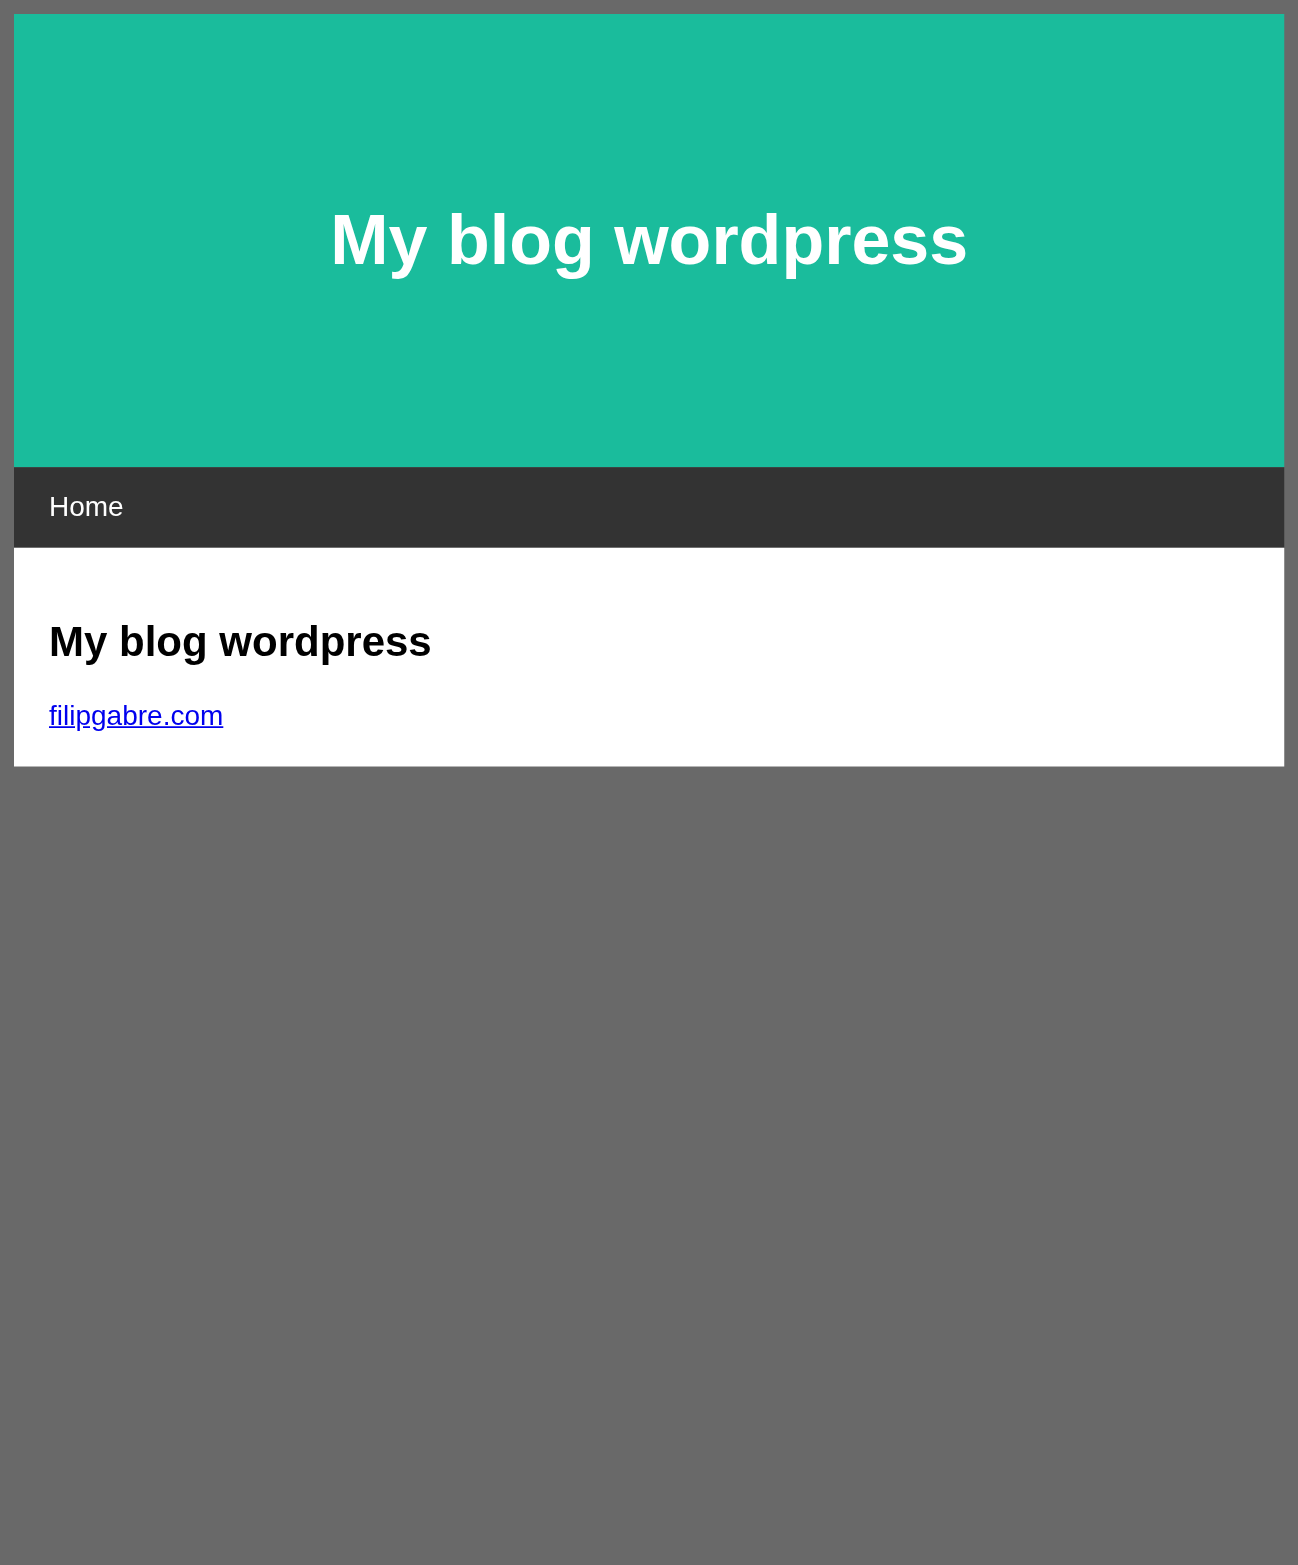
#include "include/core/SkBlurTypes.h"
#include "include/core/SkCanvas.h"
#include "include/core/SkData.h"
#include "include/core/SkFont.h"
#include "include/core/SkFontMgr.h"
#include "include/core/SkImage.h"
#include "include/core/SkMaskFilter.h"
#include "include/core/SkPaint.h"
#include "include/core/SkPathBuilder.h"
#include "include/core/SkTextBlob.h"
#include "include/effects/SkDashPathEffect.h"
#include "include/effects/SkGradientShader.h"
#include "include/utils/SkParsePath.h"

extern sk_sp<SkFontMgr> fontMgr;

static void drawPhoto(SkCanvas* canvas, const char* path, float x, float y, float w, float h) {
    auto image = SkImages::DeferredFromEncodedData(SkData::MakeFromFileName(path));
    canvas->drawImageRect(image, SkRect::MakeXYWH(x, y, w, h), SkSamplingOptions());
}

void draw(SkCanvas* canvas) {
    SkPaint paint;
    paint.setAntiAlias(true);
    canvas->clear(0xFF696969);
    drawPhoto(canvas, "assets/img1.png", 14, 14, 1271, 753);
}
